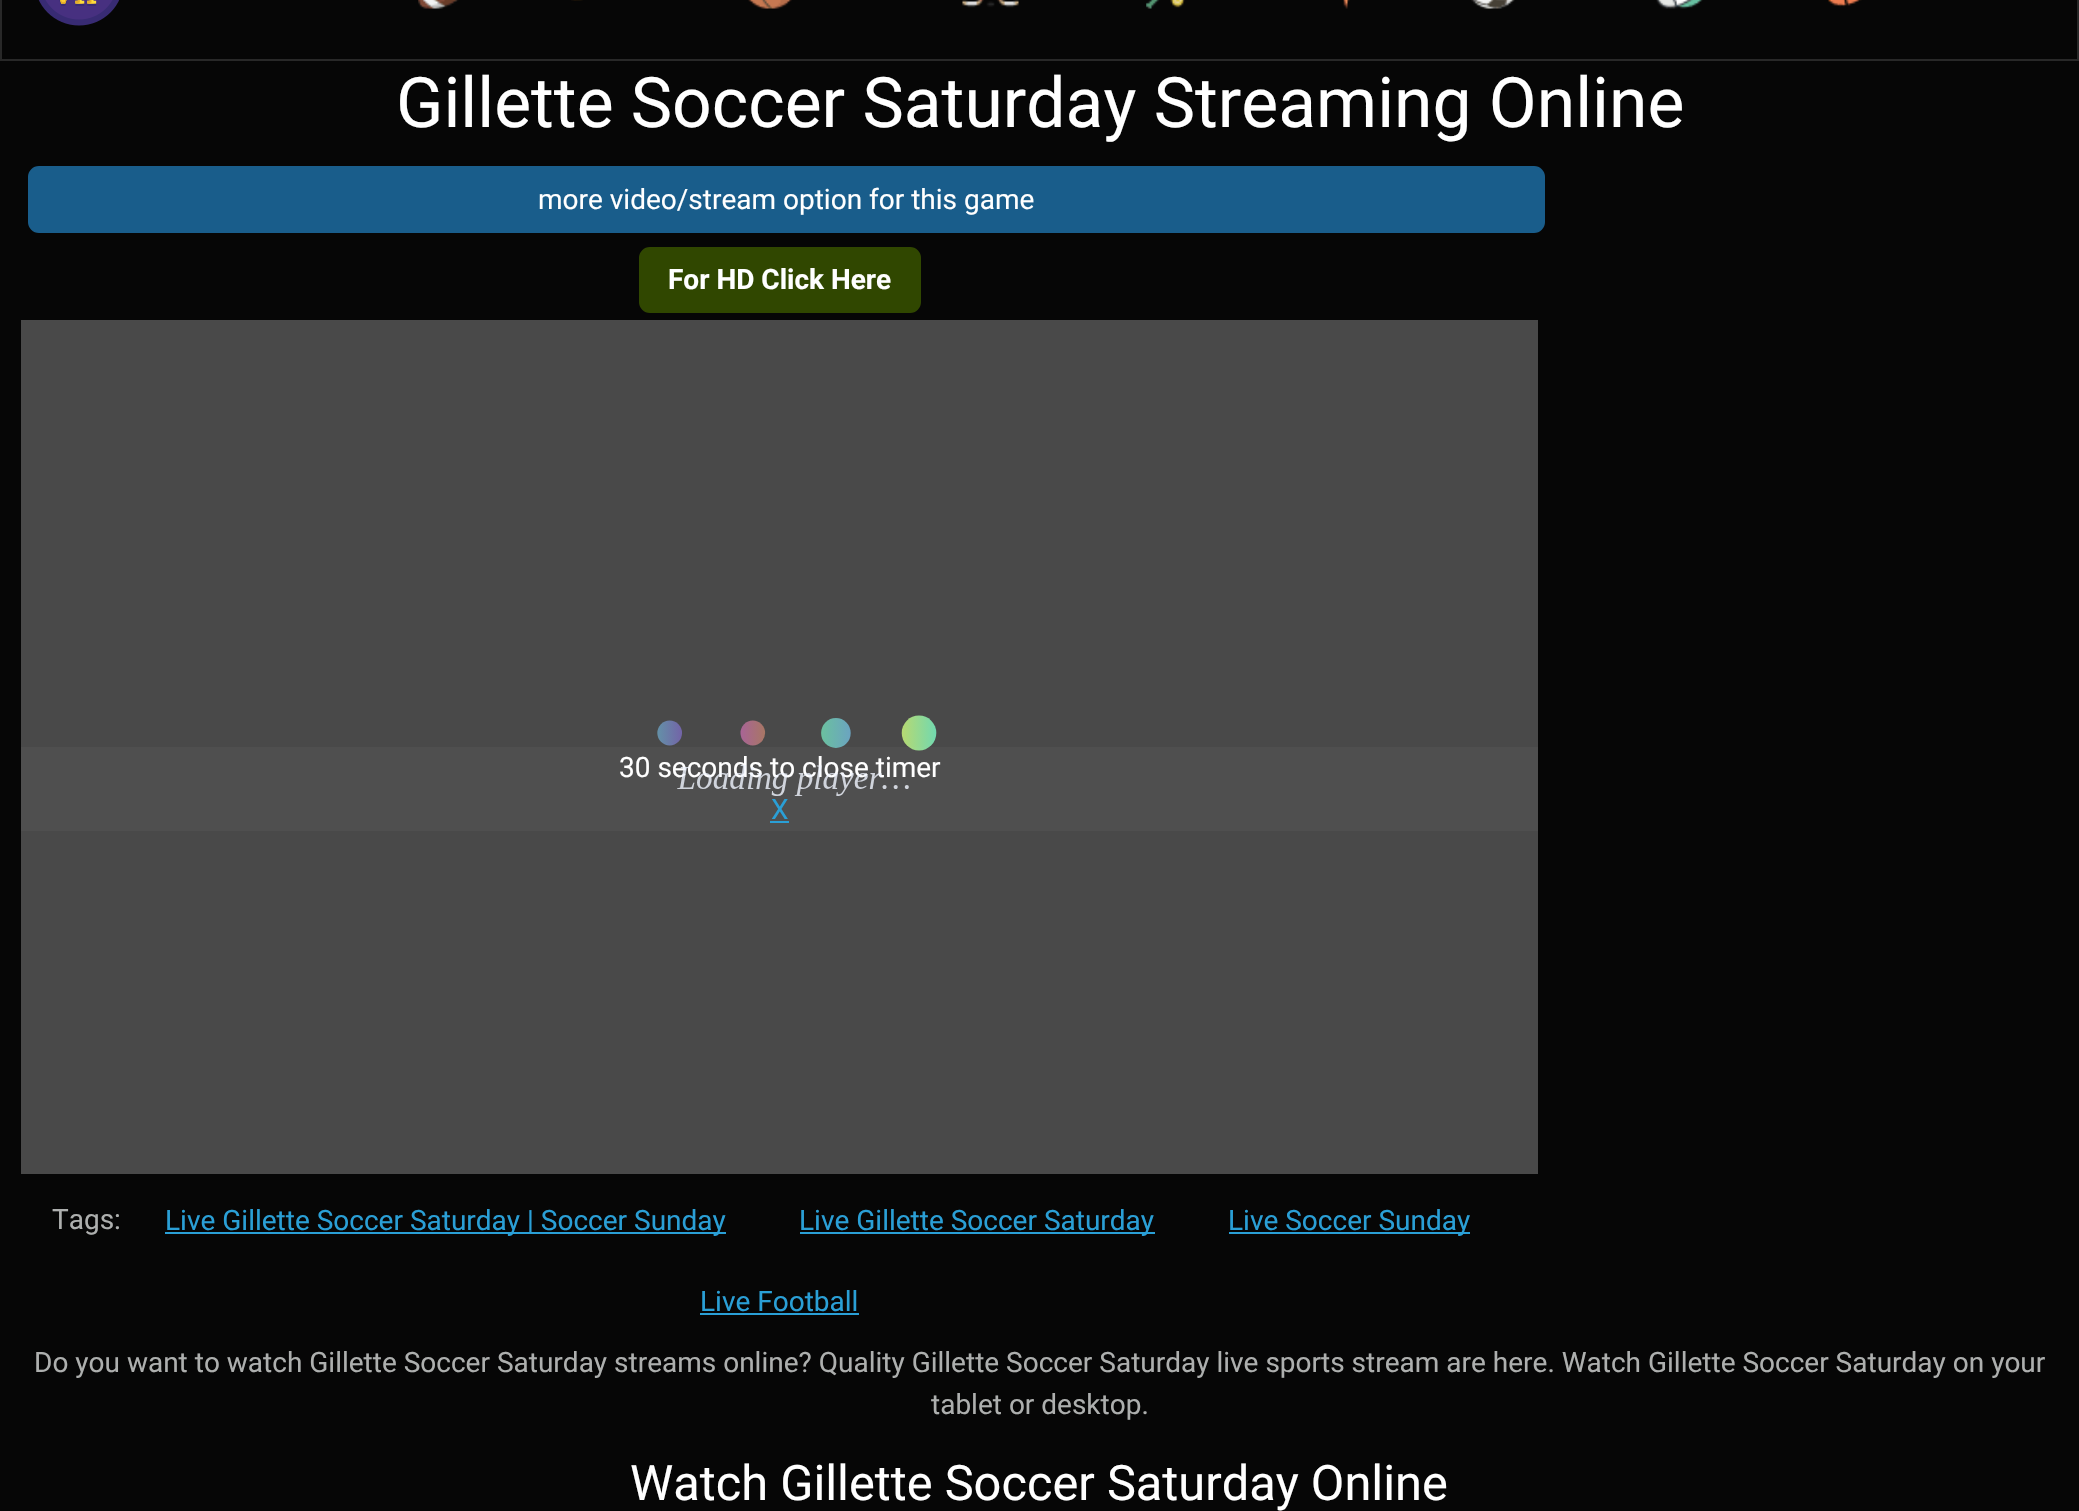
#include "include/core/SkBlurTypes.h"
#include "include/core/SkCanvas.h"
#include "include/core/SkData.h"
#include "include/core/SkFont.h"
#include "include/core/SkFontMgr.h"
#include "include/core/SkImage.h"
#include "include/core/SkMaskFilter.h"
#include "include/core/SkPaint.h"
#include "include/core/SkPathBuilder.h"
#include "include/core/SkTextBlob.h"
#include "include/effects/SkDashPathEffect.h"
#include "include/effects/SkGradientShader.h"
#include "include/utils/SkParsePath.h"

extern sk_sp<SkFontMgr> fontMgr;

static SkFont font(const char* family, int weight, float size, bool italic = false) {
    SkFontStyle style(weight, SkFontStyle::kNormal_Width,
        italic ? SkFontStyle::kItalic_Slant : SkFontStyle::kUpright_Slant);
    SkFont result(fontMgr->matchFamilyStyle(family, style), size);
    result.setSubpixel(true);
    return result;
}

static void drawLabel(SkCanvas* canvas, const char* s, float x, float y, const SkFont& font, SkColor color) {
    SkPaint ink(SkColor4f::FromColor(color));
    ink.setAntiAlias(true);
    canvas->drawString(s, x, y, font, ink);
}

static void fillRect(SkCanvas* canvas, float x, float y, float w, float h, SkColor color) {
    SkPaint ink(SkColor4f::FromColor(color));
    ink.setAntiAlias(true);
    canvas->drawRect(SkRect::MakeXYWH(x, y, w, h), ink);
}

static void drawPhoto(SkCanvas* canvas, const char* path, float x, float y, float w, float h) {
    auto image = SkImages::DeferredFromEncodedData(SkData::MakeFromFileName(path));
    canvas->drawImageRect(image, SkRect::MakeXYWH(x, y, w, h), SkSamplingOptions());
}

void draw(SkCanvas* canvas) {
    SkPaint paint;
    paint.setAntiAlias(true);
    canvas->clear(0xFF060606);
    paint.setStroke(true);
    paint.setStrokeWidth(2);
    paint.setColor(0xFF282828);
    canvas->drawRect(SkRect::MakeXYWH(1, -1, 2077, 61), paint);
    drawPhoto(canvas, "assets/img1.png", 38, 0, 81, 26);
    drawPhoto(canvas, "assets/img2.png", 418, 0, 41, 9);
    drawPhoto(canvas, "assets/img3.png", 571, 0, 12, 1);
    drawPhoto(canvas, "assets/img4.png", 748, 0, 44, 9);
    drawPhoto(canvas, "assets/img5.png", 962, 0, 57, 8);
    drawPhoto(canvas, "assets/img6.png", 1146, 0, 39, 9);
    drawPhoto(canvas, "assets/img7.png", 1343, 0, 7, 9);
    drawPhoto(canvas, "assets/img8.png", 1471, 0, 44, 9);
    drawPhoto(canvas, "assets/img9.png", 1656, 0, 47, 9);
    drawPhoto(canvas, "assets/img10.png", 1828, 0, 34, 7);
    SkFont font1 = font("Roboto", 400, 69.6f);
    drawLabel(canvas, "Gillette Soccer Saturday Streaming Online", 396, 127, font1, 0xFFFFFFFF);
    paint.setStroke(false);
    paint.setColor(0xFF195D8B);
    canvas->drawRoundRect(SkRect::MakeXYWH(29, 167, 1515, 65), 10, 10, paint);
    paint.setStroke(true);
    canvas->drawRoundRect(SkRect::MakeXYWH(29, 167, 1515, 65), 10, 10, paint);
    SkFont font2 = font("Roboto", 400, 28);
    drawLabel(canvas, "more video/stream option for this game", 538, 209, font2, 0xFFFFFFFF);
    paint.setStroke(false);
    paint.setColor(0xFF304700);
    canvas->drawRoundRect(SkRect::MakeXYWH(640, 248, 280, 64), 10, 10, paint);
    paint.setStroke(true);
    canvas->drawRoundRect(SkRect::MakeXYWH(640, 248, 280, 64), 10, 10, paint);
    SkFont font3 = font("Roboto", 700, 28);
    drawLabel(canvas, "For HD Click Here", 668, 289, font3, 0xFFFFFFFF);
    fillRect(canvas, 21, 320, 1517, 854, 0xFF494949);
    fillRect(canvas, 21, 747, 1517, 84, 0xFF4F4F4F);
    drawLabel(canvas, "30 seconds to close timer", 619, 777, font2, 0xFFFFFFFF);
    drawPhoto(canvas, "assets/img11.png", 657, 715, 280, 81);
    drawLabel(canvas, "X", 771, 819, font2, 0xFF2A9FD6);
    fillRect(canvas, 770, 821, 19, 2, 0xFF2A9FD6);
    drawLabel(canvas, "Tags:", 52, 1229, font2, 0xFFADAFAE);
    fillRect(canvas, 165, 1232, 561, 2, 0xFF2A9FD6);
    drawLabel(canvas, "Live Gillette Soccer Saturday | Soccer Sunday", 165, 1230, font2, 0xFF2A9FD6);
    fillRect(canvas, 800, 1232, 355, 2, 0xFF2A9FD6);
    drawLabel(canvas, "Live Gillette Soccer Saturday", 799, 1230, font2, 0xFF2A9FD6);
    fillRect(canvas, 1229, 1232, 241, 2, 0xFF2A9FD6);
    drawLabel(canvas, "Live Soccer Sunday", 1228, 1230, font2, 0xFF2A9FD6);
    drawLabel(canvas, "Live Football", 700, 1311, font2, 0xFF2A9FD6);
    fillRect(canvas, 700, 1313, 159, 2, 0xFF2A9FD6);
    drawLabel(canvas, "Do you want to watch Gillette Soccer Saturday streams online? Quality Gillette Soccer Saturday live sports stream are here. Watch Gillette Soccer Saturday on your", 34, 1372, font2, 0xFFADAFAE);
    drawLabel(canvas, "tablet or desktop.", 931, 1414, font2, 0xFFADAFAE);
    SkFont font4 = font("Roboto", 400, 48.75f);
    drawLabel(canvas, "Watch Gillette Soccer Saturday Online", 630, 1500, font4, 0xFFFFFFFF);
}
